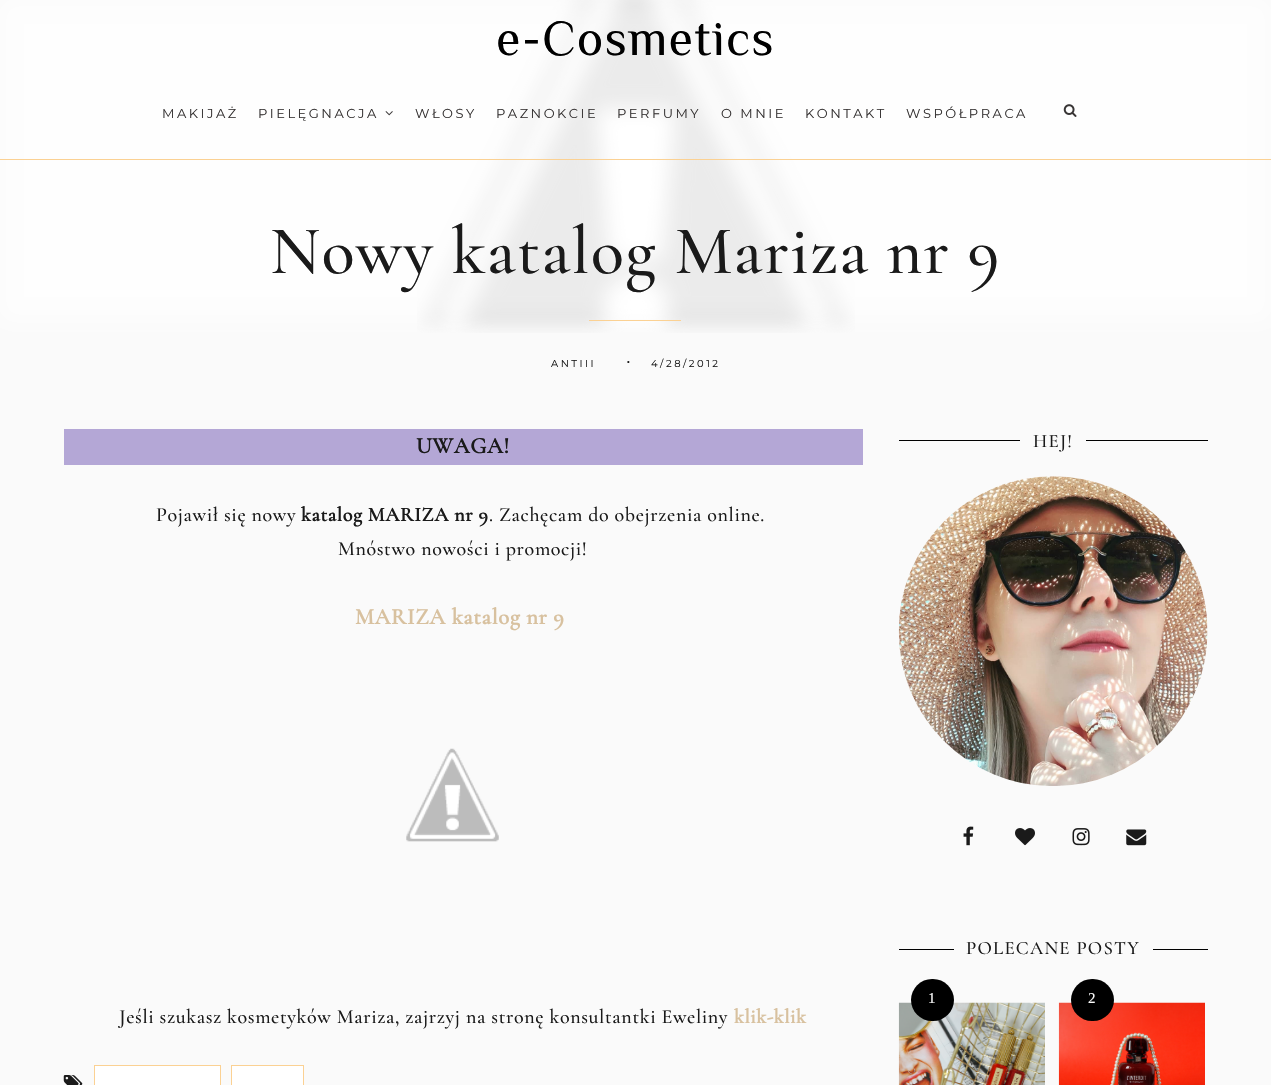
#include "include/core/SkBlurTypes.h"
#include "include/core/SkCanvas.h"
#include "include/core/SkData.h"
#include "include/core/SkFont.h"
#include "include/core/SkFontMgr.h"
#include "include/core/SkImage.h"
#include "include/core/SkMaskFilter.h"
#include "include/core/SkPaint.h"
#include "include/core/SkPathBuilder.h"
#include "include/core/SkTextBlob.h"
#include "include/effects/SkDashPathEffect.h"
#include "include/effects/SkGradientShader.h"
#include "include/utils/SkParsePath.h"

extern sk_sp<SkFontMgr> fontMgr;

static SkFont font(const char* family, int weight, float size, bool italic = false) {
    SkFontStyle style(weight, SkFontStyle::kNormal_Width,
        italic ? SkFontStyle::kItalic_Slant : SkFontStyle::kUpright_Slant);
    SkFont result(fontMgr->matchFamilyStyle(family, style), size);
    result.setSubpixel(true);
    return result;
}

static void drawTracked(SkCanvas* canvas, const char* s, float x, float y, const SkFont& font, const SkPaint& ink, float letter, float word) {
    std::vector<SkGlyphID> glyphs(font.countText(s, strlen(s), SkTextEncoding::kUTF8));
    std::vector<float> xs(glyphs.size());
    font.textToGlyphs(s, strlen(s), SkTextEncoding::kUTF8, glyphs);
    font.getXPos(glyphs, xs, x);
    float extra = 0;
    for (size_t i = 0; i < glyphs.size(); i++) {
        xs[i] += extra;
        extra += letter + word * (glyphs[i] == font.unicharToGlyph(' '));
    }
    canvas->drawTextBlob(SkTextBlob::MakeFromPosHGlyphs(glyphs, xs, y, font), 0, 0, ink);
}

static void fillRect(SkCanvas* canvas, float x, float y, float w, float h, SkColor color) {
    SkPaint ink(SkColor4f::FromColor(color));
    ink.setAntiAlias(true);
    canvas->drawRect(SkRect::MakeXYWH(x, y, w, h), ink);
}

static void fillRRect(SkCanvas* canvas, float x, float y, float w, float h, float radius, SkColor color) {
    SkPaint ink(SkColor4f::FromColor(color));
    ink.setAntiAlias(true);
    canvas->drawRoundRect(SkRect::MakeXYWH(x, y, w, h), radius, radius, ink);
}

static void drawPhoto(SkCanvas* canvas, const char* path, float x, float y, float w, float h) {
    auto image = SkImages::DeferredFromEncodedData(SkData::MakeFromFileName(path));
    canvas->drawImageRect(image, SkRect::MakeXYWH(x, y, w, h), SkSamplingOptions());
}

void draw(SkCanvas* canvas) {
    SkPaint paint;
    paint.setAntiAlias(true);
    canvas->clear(0xFFFAFAFA);
    drawPhoto(canvas, "assets/img1.png", 417, 0, 438, 333);
    paint.setColor(0xB3FFFFFF);
    paint.setMaskFilter(SkMaskFilter::MakeBlur(kNormal_SkBlurStyle, 10));
    canvas->drawRect(SkRect::MakeXYWH(0, 0, 1271, 321), paint);
    paint.setMaskFilter(nullptr);
    fillRect(canvas, 0, 159, 1271, 1, 0xFFFBD193);
    SkFont font1 = font("Philosopher", 400, 50);
    paint.setColor(0xFF000000);
    drawTracked(canvas, "e-Cosmetics", 496, 55, font1, paint, 1.25f, 0);
    SkFont font2 = font("Montserrat", 100, 13);
    paint.setColor(0xFF383535);
    drawTracked(canvas, "MAKIJAŻ", 162, 118, font2, paint, 2.5f, 0);
    drawTracked(canvas, "PIELĘGNACJA", 258, 118, font2, paint, 2.5f, 0);
    drawPhoto(canvas, "assets/img2.png", 385, 111, 8, 5);
    drawTracked(canvas, "WŁOSY", 415, 118, font2, paint, 2.5f, 0);
    drawTracked(canvas, "PAZNOKCIE", 496, 118, font2, paint, 2.5f, 0);
    drawTracked(canvas, "PERFUMY", 617, 118, font2, paint, 2.5f, 0);
    drawTracked(canvas, "O MNIE", 721, 118, font2, paint, 2.5f, 0);
    drawTracked(canvas, "KONTAKT", 805, 118, font2, paint, 2.5f, 0);
    drawTracked(canvas, "WSPÓŁPRACA", 906, 118, font2, paint, 2.5f, 0);
    drawPhoto(canvas, "assets/img3.png", 1063, 104, 14, 13);
    SkFont font3 = font("Cormorant Garamond", 300, 68.75f);
    paint.setColor(0xFF1A1A1A);
    drawTracked(canvas, "Nowy katalog Mariza nr 9", 270, 273, font3, paint, 1.25f, 0);
    fillRect(canvas, 589, 320, 92, 1, 0xFFFBD193);
    SkFont font4 = font("Montserrat", 100, 10);
    drawTracked(canvas, "ANTIII", 551, 367, font4, paint, 2.5f, 0);
    SkFont font5 = font("Montserrat", 100, 18.75f);
    drawTracked(canvas, "·", 626, 367, font5, paint, 2.5f, 0);
    drawTracked(canvas, "4/28/2012", 651, 367, font4, paint, 2.5f, 0);
    fillRect(canvas, 64, 429, 799, 36, 0xFFB4A7D6);
    SkFont font6 = font("Cormorant Garamond", 700, 22.5f);
    drawTracked(canvas, "UWAGA!", 416, 453, font6, paint, 0.62f, 0);
    SkFont font7 = font("Cormorant Garamond", 300, 20);
    drawTracked(canvas, "Pojawił się nowy", 156, 521, font7, paint, 0.62f, 0);
    SkFont font8 = font("Cormorant Garamond", 700, 20);
    drawTracked(canvas, "katalog MARIZA nr 9", 301, 521, font8, paint, 0.62f, 0);
    drawTracked(canvas, ". Zachęcam do obejrzenia online.", 489, 521, font7, paint, 0.62f, 0);
    drawTracked(canvas, "Mnóstwo nowości i promocji!", 338, 555, font7, paint, 0.62f, 0);
    paint.setColor(0xFFD8C19F);
    drawTracked(canvas, "MARIZA katalog nr 9", 355, 624, font6, paint, 0.62f, 0);
    drawPhoto(canvas, "assets/img4.png", 406, 748, 93, 94);
    paint.setColor(0xFF1A1A1A);
    drawTracked(canvas, "Jeśli szukasz kosmetyków Mariza, zajrzyj na stronę konsultantki Eweliny", 119, 1023, font7, paint, 0.62f, 0);
    paint.setColor(0xFFD8C19F);
    drawTracked(canvas, "klik-klik", 734, 1023, font8, paint, 0.62f, 0);
    drawPhoto(canvas, "assets/img5.png", 63, 1075, 20, 10);
    paint.setColor(0xFFFFFFFF);
    canvas->drawRect(SkRect::MakeXYWH(94.5f, 1065.5f, 126, 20), paint);
    paint.setStroke(true);
    paint.setStrokeWidth(1);
    paint.setColor(0xFFFBD193);
    canvas->drawRect(SkRect::MakeXYWH(94.5f, 1065.5f, 126, 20), paint);
    paint.setStroke(false);
    paint.setColor(0xFFFFFFFF);
    canvas->drawRect(SkRect::MakeXYWH(231.5f, 1065.5f, 72, 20), paint);
    paint.setStroke(true);
    paint.setColor(0xFFFBD193);
    canvas->drawRect(SkRect::MakeXYWH(231.5f, 1065.5f, 72, 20), paint);
    fillRect(canvas, 899, 440, 121, 1, 0xFF000000);
    SkFont font9 = font("Cormorant Garamond", 300, 18.75f);
    paint.setStroke(false);
    paint.setColor(0xFF1A1A1A);
    drawTracked(canvas, "HEJ!", 1033, 447, font9, paint, 1.25f, 0);
    fillRect(canvas, 1086, 440, 122, 1, 0xFF000000);
    drawPhoto(canvas, "assets/img6.png", 898, 476, 310, 310);
    drawPhoto(canvas, "assets/img7.png", 963, 826, 11, 20);
    drawPhoto(canvas, "assets/img8.png", 1015, 828, 20, 18);
    drawPhoto(canvas, "assets/img9.png", 1072, 828, 18, 18);
    drawPhoto(canvas, "assets/img10.png", 1126, 829, 21, 17);
    fillRect(canvas, 899, 949, 55, 1, 0xFF000000);
    drawTracked(canvas, "POLECANE POSTY", 966, 954, font9, paint, 1.25f, 0);
    fillRect(canvas, 1153, 949, 55, 1, 0xFF000000);
    drawPhoto(canvas, "assets/img11.png", 898, 1002, 147, 83);
    fillRRect(canvas, 911, 979, 43, 42, 21, 0xFF000000);
    SkFont font10 = font("Liberation Serif", 400, 15);
    paint.setColor(0xFFFAFAFA);
    drawTracked(canvas, "1", 928, 1003, font10, paint, 1.25f, 0);
    drawPhoto(canvas, "assets/img12.png", 1058, 1002, 147, 83);
    fillRRect(canvas, 1071, 979, 43, 42, 21, 0xFF000000);
    drawTracked(canvas, "2", 1088, 1003, font10, paint, 1.25f, 0);
}
